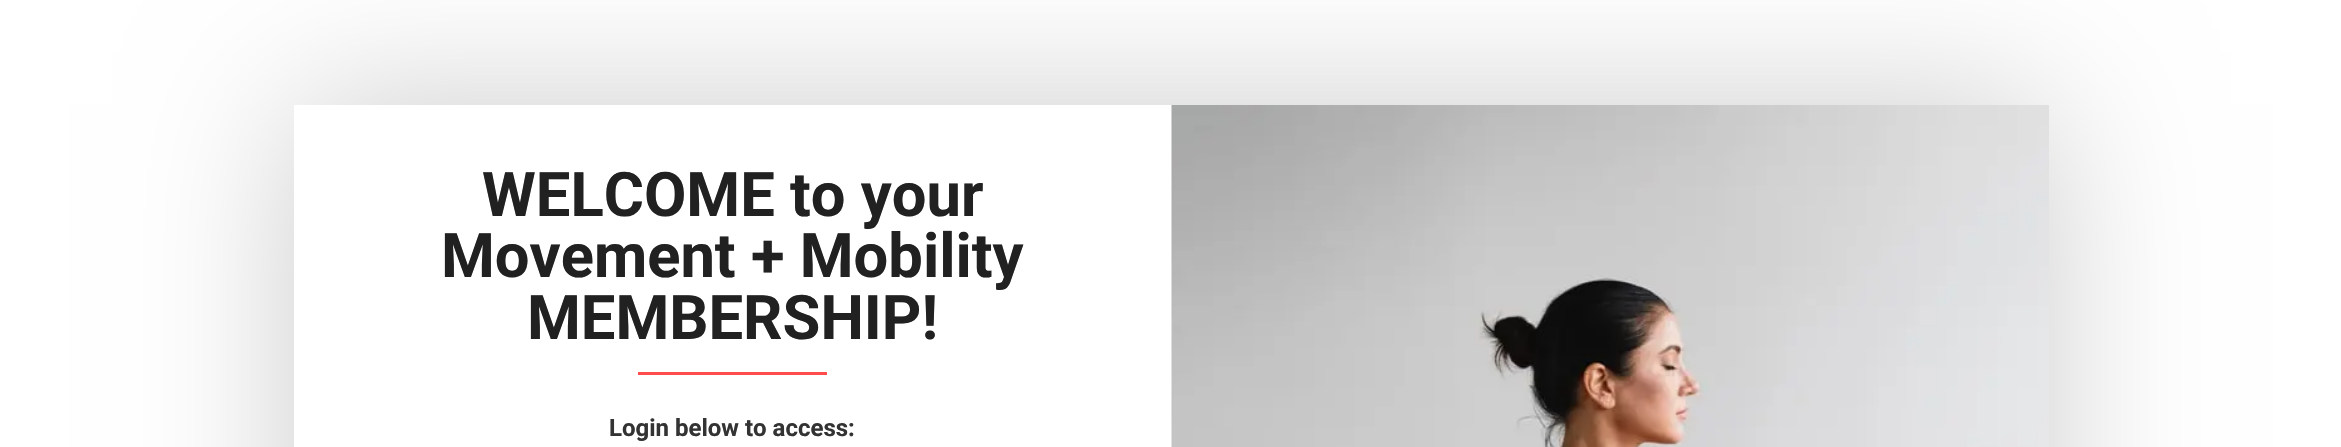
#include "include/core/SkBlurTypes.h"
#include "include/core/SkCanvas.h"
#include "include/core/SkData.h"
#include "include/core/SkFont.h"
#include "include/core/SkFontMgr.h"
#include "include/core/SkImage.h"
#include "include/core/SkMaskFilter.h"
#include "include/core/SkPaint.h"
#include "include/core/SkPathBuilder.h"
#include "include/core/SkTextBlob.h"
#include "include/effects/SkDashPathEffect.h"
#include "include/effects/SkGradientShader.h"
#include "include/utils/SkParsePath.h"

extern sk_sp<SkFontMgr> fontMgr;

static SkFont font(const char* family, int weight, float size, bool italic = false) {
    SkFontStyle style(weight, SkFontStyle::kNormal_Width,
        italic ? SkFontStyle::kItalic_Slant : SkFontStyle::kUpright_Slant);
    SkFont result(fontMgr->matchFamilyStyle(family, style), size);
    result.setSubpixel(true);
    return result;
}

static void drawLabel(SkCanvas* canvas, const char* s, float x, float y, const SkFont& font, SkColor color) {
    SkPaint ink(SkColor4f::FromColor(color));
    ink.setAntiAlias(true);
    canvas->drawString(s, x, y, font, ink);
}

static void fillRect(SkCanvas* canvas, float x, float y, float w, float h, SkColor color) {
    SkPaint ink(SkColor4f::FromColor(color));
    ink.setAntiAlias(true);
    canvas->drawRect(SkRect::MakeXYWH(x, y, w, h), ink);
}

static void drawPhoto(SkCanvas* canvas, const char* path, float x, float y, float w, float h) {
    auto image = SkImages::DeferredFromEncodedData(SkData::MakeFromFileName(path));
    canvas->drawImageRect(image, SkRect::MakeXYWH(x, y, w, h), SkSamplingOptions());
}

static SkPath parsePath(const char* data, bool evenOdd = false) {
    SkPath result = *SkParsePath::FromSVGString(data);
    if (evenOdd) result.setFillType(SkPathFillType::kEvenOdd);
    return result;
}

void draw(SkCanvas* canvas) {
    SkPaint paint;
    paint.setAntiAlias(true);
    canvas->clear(0xFFFFFFFF);
    canvas->save();
    canvas->clipPath(parsePath("M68 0H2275V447H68ZM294 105H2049V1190H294Z", true), true);
    paint.setColor(0x33000000);
    paint.setMaskFilter(SkMaskFilter::MakeBlur(kNormal_SkBlurStyle, 75));
    canvas->drawRect(SkRect::MakeXYWH(294, 105, 1755, 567), paint);
    paint.setMaskFilter(nullptr);
    canvas->restore();
    SkFont font1 = font("Roboto", 700, 61.5f);
    drawLabel(canvas, "WELCOME to your", 482, 216, font1, 0xFF212121);
    drawLabel(canvas, "Movement + Mobility", 441, 277, font1, 0xFF212121);
    drawLabel(canvas, "MEMBERSHIP!", 527, 339, font1, 0xFF212121);
    fillRect(canvas, 638, 372, 189, 3, 0xFFFF4D4D);
    SkFont font2 = font("Roboto", 700, 24);
    drawLabel(canvas, "Login below to access:", 609, 436, font2, 0xFF333333);
    drawPhoto(canvas, "assets/img1.png", 1171, 105, 878, 342);
}
